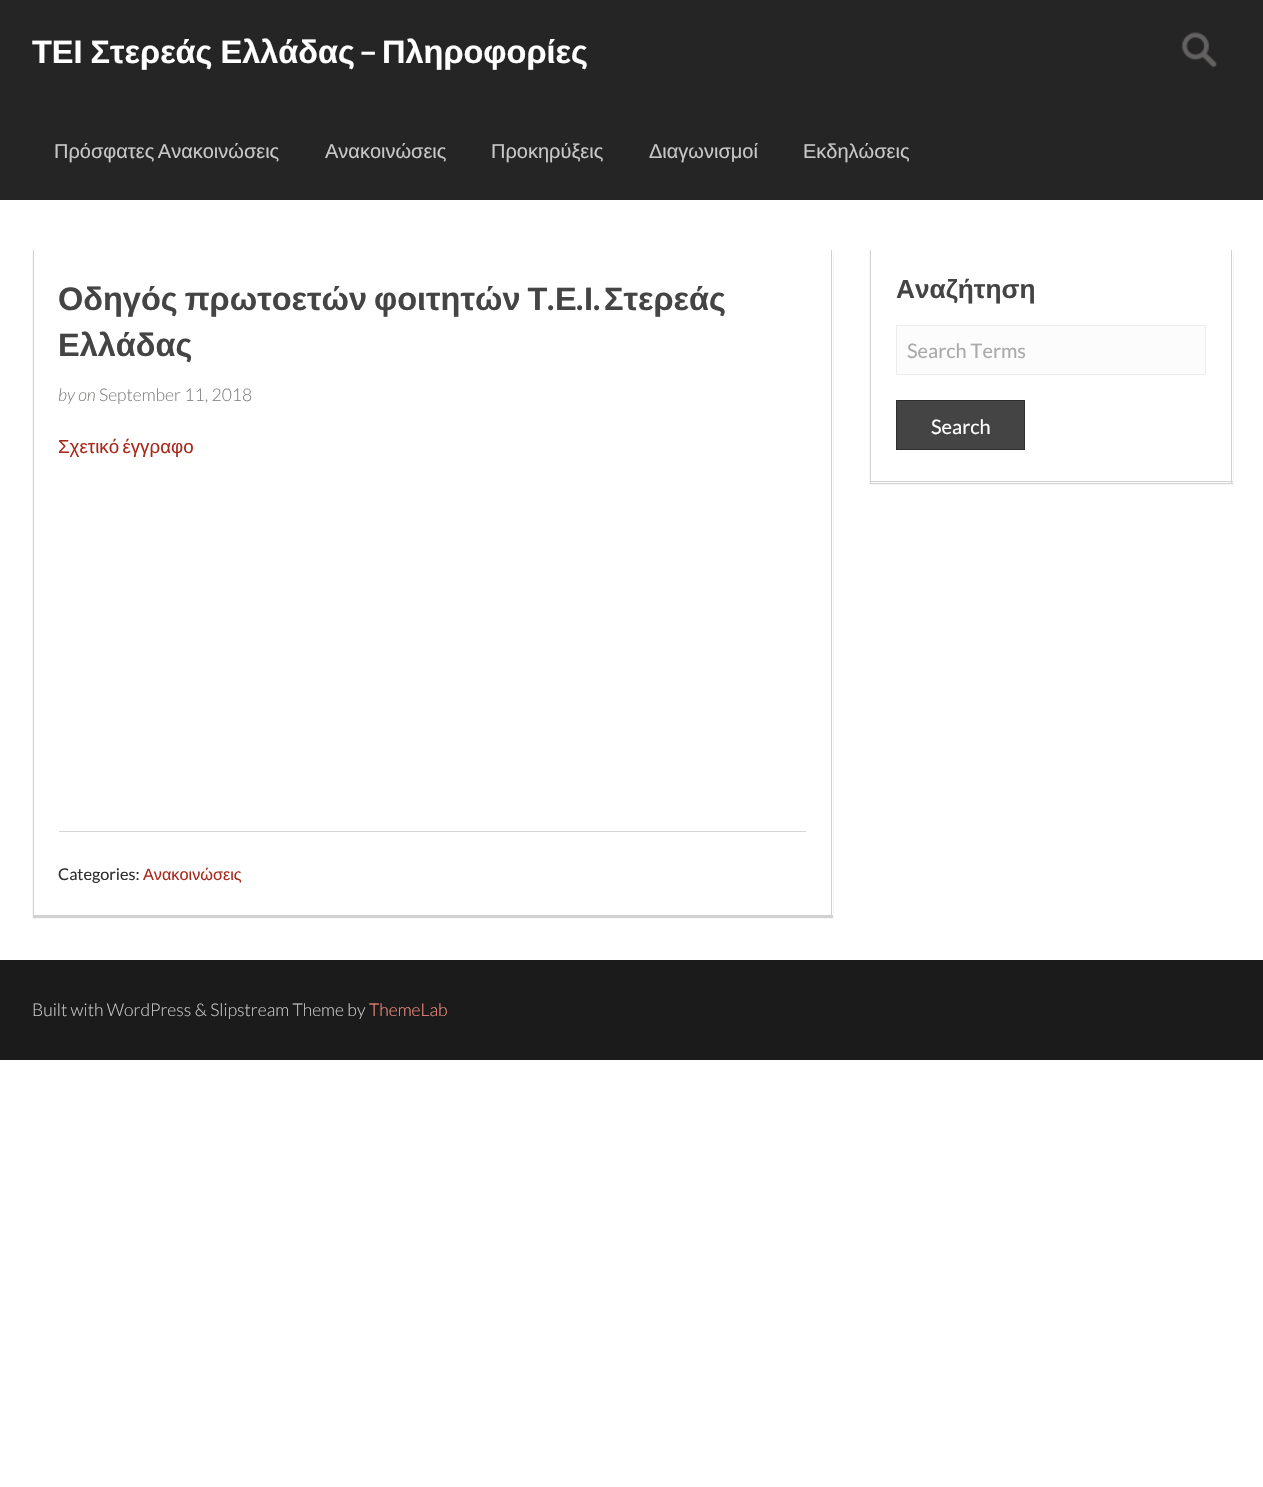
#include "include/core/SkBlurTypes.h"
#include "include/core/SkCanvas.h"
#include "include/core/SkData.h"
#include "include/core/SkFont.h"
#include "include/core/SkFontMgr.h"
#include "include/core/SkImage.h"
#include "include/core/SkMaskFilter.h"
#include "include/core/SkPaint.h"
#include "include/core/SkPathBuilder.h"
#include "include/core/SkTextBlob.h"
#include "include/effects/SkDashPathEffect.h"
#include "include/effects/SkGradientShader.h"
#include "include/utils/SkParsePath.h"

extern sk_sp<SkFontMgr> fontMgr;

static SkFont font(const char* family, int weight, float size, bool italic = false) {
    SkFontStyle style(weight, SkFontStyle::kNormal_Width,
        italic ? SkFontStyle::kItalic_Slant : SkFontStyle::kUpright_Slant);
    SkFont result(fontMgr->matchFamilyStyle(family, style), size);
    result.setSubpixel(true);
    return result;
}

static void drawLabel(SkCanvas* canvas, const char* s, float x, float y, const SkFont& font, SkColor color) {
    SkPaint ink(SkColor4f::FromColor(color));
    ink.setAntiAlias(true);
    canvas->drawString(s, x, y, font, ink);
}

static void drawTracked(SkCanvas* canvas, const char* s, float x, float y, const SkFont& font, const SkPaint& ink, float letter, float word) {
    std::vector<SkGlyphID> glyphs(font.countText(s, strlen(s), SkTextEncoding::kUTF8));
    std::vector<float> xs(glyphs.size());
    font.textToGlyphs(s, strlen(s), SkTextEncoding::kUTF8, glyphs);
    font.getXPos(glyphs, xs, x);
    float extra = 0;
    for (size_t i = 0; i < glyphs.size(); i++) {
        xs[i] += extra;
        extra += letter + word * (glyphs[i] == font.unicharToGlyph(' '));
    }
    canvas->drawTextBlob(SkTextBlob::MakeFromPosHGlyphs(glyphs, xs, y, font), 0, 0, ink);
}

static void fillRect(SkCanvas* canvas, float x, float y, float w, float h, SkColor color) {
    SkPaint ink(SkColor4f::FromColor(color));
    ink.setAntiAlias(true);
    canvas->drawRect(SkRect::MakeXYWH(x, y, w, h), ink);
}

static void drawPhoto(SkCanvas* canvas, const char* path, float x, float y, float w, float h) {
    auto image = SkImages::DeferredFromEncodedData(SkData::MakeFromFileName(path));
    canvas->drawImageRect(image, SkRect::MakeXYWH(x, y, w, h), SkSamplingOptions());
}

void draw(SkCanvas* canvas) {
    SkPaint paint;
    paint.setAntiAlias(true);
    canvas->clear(0xFFFFFFFF);
    fillRect(canvas, 0, 0, 1263, 200, 0xFF252525);
    SkFont font1 = font("Liberation Sans", 700, 32.5f);
    paint.setColor(0xFFFFFFFF);
    drawTracked(canvas, "ΤΕΙ Στερεάς Ελλάδας", 32, 63, font1, paint, 0, -1);
    SkFont font2 = font("Lato", 700, 32.5f);
    drawLabel(canvas, "–", 359, 63, font2, 0xFFFFFFFF);
    drawLabel(canvas, "Πληροφορίες", 382, 63, font1, 0xFFFFFFFF);
    drawPhoto(canvas, "assets/img1.png", 1181, 32, 36, 36);
    SkFont font3 = font("Liberation Sans", 400, 20);
    paint.setColor(0xFFC7C7C7);
    drawTracked(canvas, "Πρόσφατες Ανακοινώσεις", 54, 158, font3, paint, 0, -2);
    drawLabel(canvas, "Ανακοινώσεις", 325, 158, font3, 0xFFC7C7C7);
    drawLabel(canvas, "Προκηρύξεις", 491, 158, font3, 0xFFC7C7C7);
    drawLabel(canvas, "Διαγωνισμοί", 649, 158, font3, 0xFFC7C7C7);
    drawLabel(canvas, "Εκδηλώσεις", 803, 158, font3, 0xFFC7C7C7);
    paint.setColor(0xFFD1D1D1);
    paint.setMaskFilter(SkMaskFilter::MakeBlur(kNormal_SkBlurStyle, 0.5f));
    canvas->drawRect(SkRect::MakeXYWH(33, 251, 800, 667), paint);
    paint.setMaskFilter(nullptr);
    fillRect(canvas, 34, 250, 799, 665, 0xFFFFFFFF);
    fillRect(canvas, 831, 250, 1, 666, 0xFFD1D1D1);
    fillRect(canvas, 33, 915, 800, 1, 0xFFD1D1D1);
    fillRect(canvas, 33, 250, 1, 666, 0xFFD1D1D1);
    paint.setColor(0xFF444444);
    drawTracked(canvas, "Οδηγός πρωτοετών φοιτητών Τ", 58, 310, font1, paint, 0, -2);
    drawLabel(canvas, ".", 547, 310, font2, 0xFF444444);
    drawLabel(canvas, "Ε", 555, 310, font1, 0xFF444444);
    drawLabel(canvas, ".", 576, 310, font2, 0xFF444444);
    drawLabel(canvas, "Ι", 584, 310, font1, 0xFF444444);
    drawLabel(canvas, ".", 593, 310, font2, 0xFF444444);
    drawLabel(canvas, "Στερεάς", 604, 310, font1, 0xFF444444);
    drawLabel(canvas, "Ελλάδας", 58, 356, font1, 0xFF444444);
    SkFont font4 = font("Lato", 300, 17.5f, true);
    drawLabel(canvas, "by on", 58, 401, font4, 0xFF7F7F7E);
    SkFont font5 = font("Lato", 300, 17.5f);
    drawLabel(canvas, "September 11, 2018", 99, 401, font5, 0xFF7F7F7E);
    SkFont font6 = font("Liberation Sans", 400, 18.75f);
    paint.setColor(0xFFA8281A);
    drawTracked(canvas, "Σχετικό έγγραφο", 58, 453, font6, paint, 0, -2);
    fillRect(canvas, 59, 831, 747, 1, 0xFFD5D5D5);
    SkFont font7 = font("Lato", 400, 16.25f);
    drawLabel(canvas, "Categories:", 58, 880, font7, 0xFF2F2F2F);
    SkFont font8 = font("Liberation Sans", 400, 16.25f);
    drawLabel(canvas, "Ανακοινώσεις", 143, 880, font8, 0xFFA8281A);
    paint.setColor(0xFFD1D1D1);
    paint.setMaskFilter(SkMaskFilter::MakeBlur(kNormal_SkBlurStyle, 0.5f));
    canvas->drawRect(SkRect::MakeXYWH(870, 251, 363, 233), paint);
    paint.setMaskFilter(nullptr);
    fillRect(canvas, 871, 250, 362, 233, 0xFFFFFFFF);
    fillRect(canvas, 1231, 250, 1, 233, 0xFFD1D1D1);
    fillRect(canvas, 870, 481, 363, 1, 0xFFD1D1D1);
    fillRect(canvas, 870, 250, 1, 233, 0xFFD1D1D1);
    SkFont font9 = font("Liberation Sans", 700, 26.25f);
    drawLabel(canvas, "Αναζήτηση", 896, 298, font9, 0xFF444444);
    paint.setColor(0xFFFCFCFC);
    canvas->drawRect(SkRect::MakeXYWH(896.5f, 325.5f, 309, 49), paint);
    paint.setStroke(true);
    paint.setStrokeWidth(1);
    paint.setColor(0xFFECECEC);
    canvas->drawRect(SkRect::MakeXYWH(896.5f, 325.5f, 309, 49), paint);
    SkFont font10 = font("Lato", 400, 20);
    drawLabel(canvas, "Search Terms", 907, 358, font10, 0xFFABA9AB);
    paint.setStroke(false);
    paint.setColor(0xFF444444);
    canvas->drawRect(SkRect::MakeXYWH(896.5f, 400.5f, 128, 49), paint);
    paint.setStroke(true);
    paint.setColor(0xFF2F2F2F);
    canvas->drawRect(SkRect::MakeXYWH(896.5f, 400.5f, 128, 49), paint);
    drawLabel(canvas, "Search", 931, 434, font10, 0xFFFFFFFF);
    fillRect(canvas, 0, 960, 1263, 100, 0xFF1B1B1B);
    drawLabel(canvas, "Built with WordPress & Slipstream Theme by", 32, 1016, font5, 0xFFC7C7C7);
    drawLabel(canvas, "ThemeLab", 369, 1016, font5, 0xFFFD9185);
}
